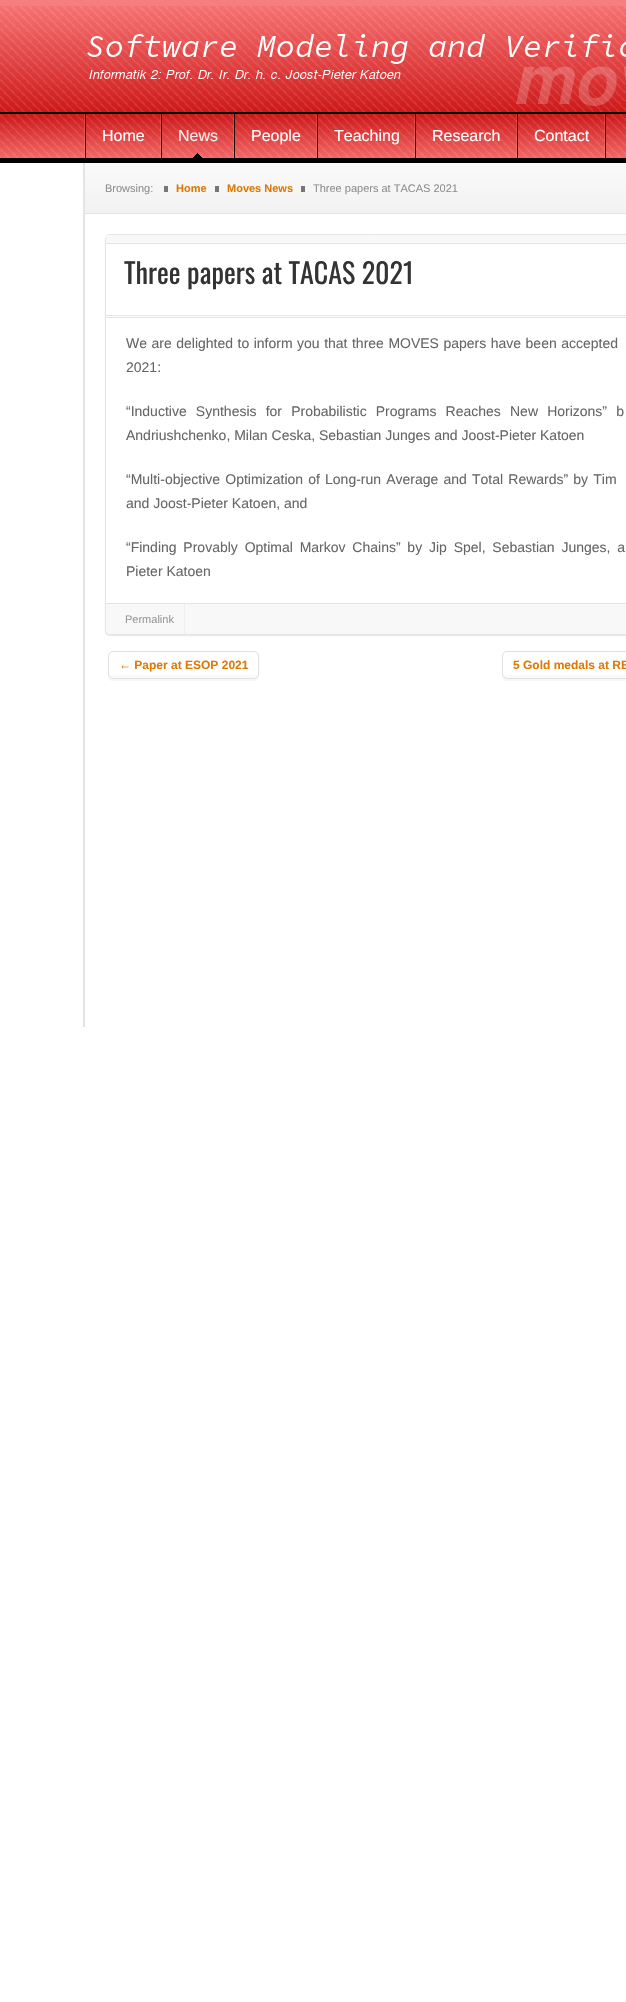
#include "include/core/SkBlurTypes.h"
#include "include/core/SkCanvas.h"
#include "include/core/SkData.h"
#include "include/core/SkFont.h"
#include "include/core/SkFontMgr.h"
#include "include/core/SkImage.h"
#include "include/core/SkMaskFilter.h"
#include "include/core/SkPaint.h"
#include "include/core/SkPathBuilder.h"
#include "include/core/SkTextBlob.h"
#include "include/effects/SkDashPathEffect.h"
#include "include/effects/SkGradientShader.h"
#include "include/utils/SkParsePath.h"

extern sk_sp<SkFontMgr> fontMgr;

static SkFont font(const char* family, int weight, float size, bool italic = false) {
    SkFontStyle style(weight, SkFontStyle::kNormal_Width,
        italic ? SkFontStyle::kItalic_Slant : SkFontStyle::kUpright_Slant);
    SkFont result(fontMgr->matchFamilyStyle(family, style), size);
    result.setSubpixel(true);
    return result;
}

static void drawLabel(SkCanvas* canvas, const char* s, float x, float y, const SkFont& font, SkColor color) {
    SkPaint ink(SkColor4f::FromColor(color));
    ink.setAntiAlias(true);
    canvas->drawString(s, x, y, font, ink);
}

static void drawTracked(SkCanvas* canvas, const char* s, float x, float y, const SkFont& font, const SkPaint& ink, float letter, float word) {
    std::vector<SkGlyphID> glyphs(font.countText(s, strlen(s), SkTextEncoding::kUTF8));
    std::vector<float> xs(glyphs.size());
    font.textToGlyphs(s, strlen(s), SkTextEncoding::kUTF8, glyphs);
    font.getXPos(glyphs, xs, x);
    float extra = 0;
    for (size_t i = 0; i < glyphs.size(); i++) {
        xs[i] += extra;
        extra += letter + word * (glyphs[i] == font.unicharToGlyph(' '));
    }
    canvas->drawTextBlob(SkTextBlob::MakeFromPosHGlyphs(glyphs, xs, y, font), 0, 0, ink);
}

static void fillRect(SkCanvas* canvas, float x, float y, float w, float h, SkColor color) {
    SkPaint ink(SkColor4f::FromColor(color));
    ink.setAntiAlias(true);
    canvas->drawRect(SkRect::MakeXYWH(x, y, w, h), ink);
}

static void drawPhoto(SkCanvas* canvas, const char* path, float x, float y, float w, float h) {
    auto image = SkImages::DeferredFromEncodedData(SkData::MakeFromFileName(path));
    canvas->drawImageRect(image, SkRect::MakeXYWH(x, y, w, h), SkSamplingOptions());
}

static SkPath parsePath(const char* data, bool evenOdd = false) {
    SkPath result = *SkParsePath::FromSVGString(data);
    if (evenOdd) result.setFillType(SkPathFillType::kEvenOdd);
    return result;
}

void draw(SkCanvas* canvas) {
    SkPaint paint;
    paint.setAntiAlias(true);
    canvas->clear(0xFFFFFFFF);
    drawPhoto(canvas, "assets/img1.png", 0, 0, 626, 114);
    drawPhoto(canvas, "assets/img2.png", 87, 34, 539, 72);
    drawPhoto(canvas, "assets/img3.png", 0, 114, 626, 44);
    fillRect(canvas, 0, 158, 626, 5, 0xFF000000);
    fillRect(canvas, 84, 114, 1, 44, 0x1AFFFFFF);
    fillRect(canvas, 85, 114, 1, 44, 0xE6000000);
    SkFont font1 = font("Liberation Sans", 400, 16);
    drawLabel(canvas, "Home", 102, 141, font1, 0xFFFFFFFF);
    fillRect(canvas, 160, 114, 1, 44, 0x1AFFFFFF);
    drawPhoto(canvas, "assets/img4.png", 193, 153, 9, 5);
    fillRect(canvas, 161, 114, 1, 44, 0xE6000000);
    drawLabel(canvas, "News", 178, 141, font1, 0xFFEEEEEE);
    fillRect(canvas, 233, 114, 1, 44, 0x1AFFFFFF);
    fillRect(canvas, 234, 114, 1, 44, 0xE6000000);
    drawLabel(canvas, "People", 251, 141, font1, 0xFFFFFFFF);
    fillRect(canvas, 316, 114, 1, 44, 0x1AFFFFFF);
    fillRect(canvas, 317, 114, 1, 44, 0xE6000000);
    drawLabel(canvas, "Teaching", 334, 141, font1, 0xFFFFFFFF);
    fillRect(canvas, 414, 114, 1, 44, 0x1AFFFFFF);
    fillRect(canvas, 415, 114, 1, 44, 0xE6000000);
    drawLabel(canvas, "Research", 432, 141, font1, 0xFFFFFFFF);
    fillRect(canvas, 516, 114, 1, 44, 0x1AFFFFFF);
    fillRect(canvas, 517, 114, 1, 44, 0xE6000000);
    drawLabel(canvas, "Contact", 534, 141, font1, 0xFFFFFFFF);
    fillRect(canvas, 604, 114, 1, 44, 0x1AFFFFFF);
    fillRect(canvas, 605, 114, 1, 44, 0xE6000000);
    fillRect(canvas, 83, 163, 2, 864, 0xFFE4E4E4);
    {
        const SkColor colors[] = {0xFFFAFAFA, 0xFFF2F2F2};
        const float stops[] = {0, 1};
        const SkPoint ends[] = {{85, 163}, {85, 213}};
        paint.setShader(SkGradientShader::MakeLinear(ends, colors, stops, 2, SkTileMode::kClamp));
        paint.setAlpha(255);
    }
    canvas->drawPath(parsePath("M90 163C87 163 85 165 85 168V213H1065V168C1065 165 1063 163 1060 163Z"), paint);
    fillRect(canvas, 85, 213, 541, 1, 0xFFE4E4E4);
    SkFont font2 = font("Liberation Sans", 400, 11);
    drawLabel(canvas, "Browsing:", 105, 192, font2, 0xFF8F8F8F);
    fillRect(canvas, 164, 186, 4, 6, 0xFF777777);
    SkFont font3 = font("Liberation Sans", 700, 11);
    drawLabel(canvas, "Home", 176, 192, font3, 0xFFDD7A05);
    fillRect(canvas, 215, 186, 4, 6, 0xFF777777);
    drawLabel(canvas, "Moves News", 227, 192, font3, 0xFFDD7A05);
    fillRect(canvas, 301, 186, 4, 6, 0xFF777777);
    drawLabel(canvas, "Three papers at TACAS 2021", 313, 192, font2, 0xFF8F8F8F);
    paint.setShader(nullptr);
    paint.setColor(0xFFE7E7E7);
    paint.setMaskFilter(SkMaskFilter::MakeBlur(kNormal_SkBlurStyle, 0.5f));
    canvas->drawRoundRect(SkRect::MakeXYWH(105, 235, 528, 401), 5, 5, paint);
    paint.setMaskFilter(nullptr);
    paint.setColor(0xFFFFFFFF);
    canvas->drawRoundRect(SkRect::MakeXYWH(105.5f, 234.5f, 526, 400), 4.5f, 4.5f, paint);
    paint.setStroke(true);
    paint.setStrokeWidth(1);
    paint.setColor(0xFFE5E5E5);
    canvas->drawRoundRect(SkRect::MakeXYWH(105.5f, 234.5f, 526, 400), 4.5f, 4.5f, paint);
    paint.setStroke(false);
    paint.setColor(0xFFF8F8F8);
    canvas->drawPath(parsePath("M111 235H626C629 235 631 237 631 240V244H106V240C106 237 108 235 111 235Z"), paint);
    fillRect(canvas, 106, 243, 520, 1, 0xFFE4E4E4);
    SkFont font4 = font("Oswald", 400, 28);
    drawLabel(canvas, "Three papers at TACAS 2021", 124, 284, font4, 0xFF333333);
    fillRect(canvas, 106, 315, 520, 1, 0xFFE5E5E5);
    fillRect(canvas, 106, 317, 520, 1, 0xFFE5E5E5);
    SkFont font5 = font("Liberation Sans", 400, 14);
    paint.setColor(0xFF666666);
    drawTracked(canvas, "We are delighted to inform you that three MOVES papers have been accepted", 126, 348, font5, paint, 0, 0.6f);
    drawLabel(canvas, "2021:", 126, 372, font5, 0xFF666666);
    drawTracked(canvas, "“Inductive Synthesis for Probabilistic Programs Reaches New Horizons” b", 126, 416, font5, paint, 0, 5.25f);
    drawLabel(canvas, "Andriushchenko, Milan Ceska, Sebastian Junges and Joost-Pieter Katoen", 126, 440, font5, 0xFF666666);
    drawTracked(canvas, "“Multi-objective Optimization of Long-run Average and Total Rewards” by Tim", 126, 484, font5, paint, 0, 1.25f);
    drawLabel(canvas, "and Joost-Pieter Katoen, and", 126, 508, font5, 0xFF666666);
    drawTracked(canvas, "“Finding Provably Optimal Markov Chains” by Jip Spel, Sebastian Junges, a", 126, 552, font5, paint, 0, 2.9f);
    drawLabel(canvas, "Pieter Katoen", 126, 576, font5, 0xFF666666);
    paint.setColor(0xFFF8F8F8);
    canvas->drawPath(parsePath("M106 603H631V629C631 632 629 634 626 634H111C108 634 106 632 106 629Z"), paint);
    fillRect(canvas, 106, 603, 520, 1, 0xFFE4E4E4);
    fillRect(canvas, 184, 604, 1, 30, 0xFFEEEEEE);
    drawLabel(canvas, "Permalink", 125, 623, font2, 0xFF999999);
    paint.setColor(0xFFF7F7F7);
    canvas->drawPath(parsePath("M108 674V676C108 679 110 681 113 681H254C257 681 259 679 259 676V674C259 677 257 679 254 679H113C110 679 108 677 108 674Z"), paint);
    fillRect(canvas, 109, 675, 149, 3, 0xFFFAFAFA);
    paint.setStroke(true);
    paint.setColor(0xFFE0E0E0);
    canvas->drawRoundRect(SkRect::MakeXYWH(108.5f, 651.5f, 150, 27), 4.5f, 4.5f, paint);
    SkFont font6 = font("Liberation Sans", 700, 12);
    drawLabel(canvas, "← Paper at ESOP 2021", 119, 669, font6, 0xFFDD7A05);
    paint.setStroke(false);
    paint.setColor(0xFFF7F7F7);
    canvas->drawPath(parsePath("M502 674V676C502 679 504 681 507 681H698C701 681 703 679 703 676V674C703 677 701 679 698 679H507C504 679 502 677 502 674Z"), paint);
    fillRect(canvas, 503, 675, 123, 3, 0xFFFAFAFA);
    paint.setStroke(true);
    paint.setColor(0xFFE0E0E0);
    canvas->drawRoundRect(SkRect::MakeXYWH(502.5f, 651.5f, 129, 27), 4.5f, 4.5f, paint);
    drawLabel(canvas, "5 Gold medals at RE", 513, 669, font6, 0xFFDD7A05);
}
